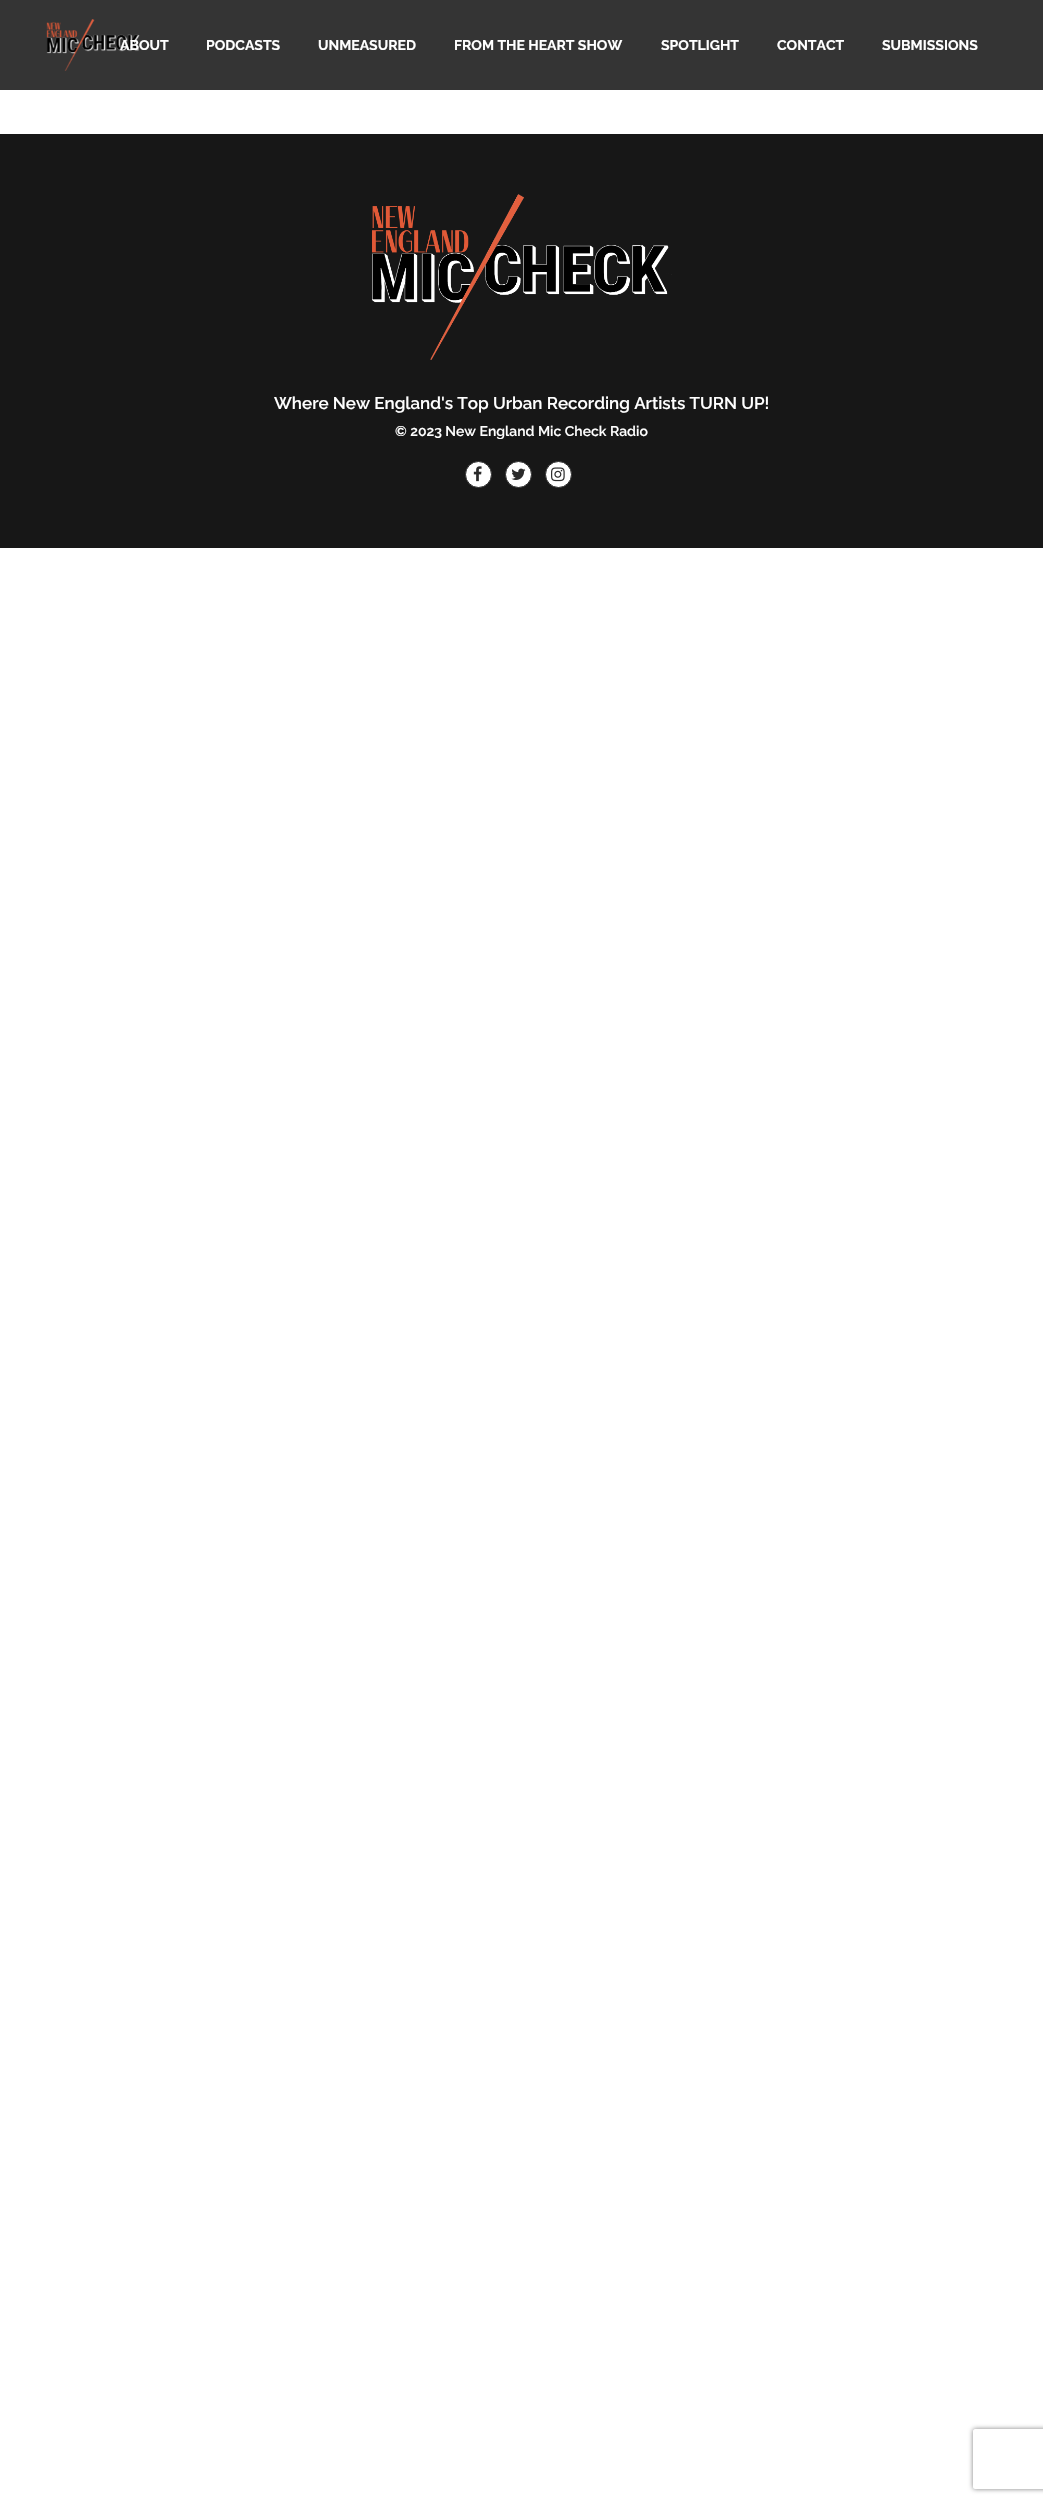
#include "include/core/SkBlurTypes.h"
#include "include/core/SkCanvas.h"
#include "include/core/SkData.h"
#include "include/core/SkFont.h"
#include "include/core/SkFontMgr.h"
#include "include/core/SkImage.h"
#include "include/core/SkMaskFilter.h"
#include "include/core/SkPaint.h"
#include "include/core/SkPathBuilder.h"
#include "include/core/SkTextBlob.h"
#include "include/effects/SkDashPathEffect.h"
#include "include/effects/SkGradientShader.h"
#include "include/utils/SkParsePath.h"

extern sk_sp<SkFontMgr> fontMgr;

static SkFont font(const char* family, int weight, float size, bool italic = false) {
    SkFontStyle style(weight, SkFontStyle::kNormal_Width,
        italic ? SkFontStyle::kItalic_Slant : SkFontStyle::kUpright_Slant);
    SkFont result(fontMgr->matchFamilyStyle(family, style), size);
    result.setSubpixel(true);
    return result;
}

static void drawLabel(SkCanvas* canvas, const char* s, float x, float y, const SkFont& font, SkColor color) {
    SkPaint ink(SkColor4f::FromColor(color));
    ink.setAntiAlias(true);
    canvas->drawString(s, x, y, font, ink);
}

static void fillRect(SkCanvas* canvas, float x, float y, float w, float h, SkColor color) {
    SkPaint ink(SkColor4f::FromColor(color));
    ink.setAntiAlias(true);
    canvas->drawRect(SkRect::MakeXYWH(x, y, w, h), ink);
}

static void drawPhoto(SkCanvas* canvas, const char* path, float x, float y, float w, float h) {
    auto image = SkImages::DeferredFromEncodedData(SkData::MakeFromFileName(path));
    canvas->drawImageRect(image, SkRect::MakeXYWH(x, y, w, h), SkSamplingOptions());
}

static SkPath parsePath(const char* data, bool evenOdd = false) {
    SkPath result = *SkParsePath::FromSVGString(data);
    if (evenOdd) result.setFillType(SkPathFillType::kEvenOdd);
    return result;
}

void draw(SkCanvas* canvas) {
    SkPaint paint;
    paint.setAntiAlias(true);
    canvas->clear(0xFFFFFFFF);
    fillRect(canvas, 0, 0, 1043, 90, 0xFF343434);
    drawPhoto(canvas, "assets/img1.png", 46, 19, 94, 52);
    SkFont font1 = font("Raleway", 700, 14);
    drawLabel(canvas, "ABOUT", 120, 50, font1, 0xFFFFFFFF);
    drawLabel(canvas, "PODCASTS", 206, 50, font1, 0xFFFFFFFF);
    drawLabel(canvas, "UNMEASURED", 318, 50, font1, 0xFFFFFFFF);
    drawLabel(canvas, "FROM THE HEART SHOW", 454, 50, font1, 0xFFFFFFFF);
    drawLabel(canvas, "SPOTLIGHT", 661, 50, font1, 0xFFFFFFFF);
    drawLabel(canvas, "CONTACT", 777, 50, font1, 0xFFFFFFFF);
    drawLabel(canvas, "SUBMISSIONS", 882, 50, font1, 0xFFFFFFFF);
    fillRect(canvas, 0, 134, 1043, 414, 0xFF171717);
    drawPhoto(canvas, "assets/img2.png", 372, 194, 300, 166);
    SkFont font2 = font("Raleway", 600, 17);
    drawLabel(canvas, "Where New England's Top Urban Recording Artists TURN UP!", 274, 409, font2, 0xFFFFFFFF);
    SkFont font3 = font("Raleway", 600, 14);
    drawLabel(canvas, "© 2023 New England Mic Check Radio", 395, 436, font3, 0xFFFFFFFF);
    paint.setColor(0xFFFFFFFF);
    canvas->drawCircle(478.5f, 474.5f, 13, paint);
    paint.setStroke(true);
    paint.setStrokeWidth(1);
    paint.setColor(0xFF2B2B2B);
    canvas->drawCircle(478.5f, 474.5f, 13, paint);
    drawPhoto(canvas, "assets/img3.png", 473, 466, 9, 16);
    paint.setStroke(false);
    paint.setColor(0xFFFFFFFF);
    canvas->drawCircle(518.5f, 474.5f, 13, paint);
    paint.setStroke(true);
    paint.setColor(0xFF2B2B2B);
    canvas->drawCircle(518.5f, 474.5f, 13, paint);
    drawPhoto(canvas, "assets/img4.png", 511, 468, 15, 12);
    paint.setStroke(false);
    paint.setColor(0xFFFFFFFF);
    canvas->drawCircle(558.5f, 474.5f, 13, paint);
    paint.setStroke(true);
    paint.setColor(0xFF2B2B2B);
    canvas->drawCircle(558.5f, 474.5f, 13, paint);
    drawPhoto(canvas, "assets/img5.png", 551, 467, 14, 15);
    canvas->save();
    canvas->clipPath(parsePath("M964 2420H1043V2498H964ZM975 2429H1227C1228 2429 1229 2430 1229 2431V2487C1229 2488 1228 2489 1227 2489H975C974 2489 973 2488 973 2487V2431C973 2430 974 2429 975 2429Z", true), true);
    paint.setStroke(false);
    paint.setColor(0xFF808080);
    paint.setMaskFilter(SkMaskFilter::MakeBlur(kNormal_SkBlurStyle, 2.5f));
    canvas->drawRoundRect(SkRect::MakeXYWH(973, 2429, 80, 60), 2, 2, paint);
    paint.setMaskFilter(nullptr);
    canvas->restore();
}
